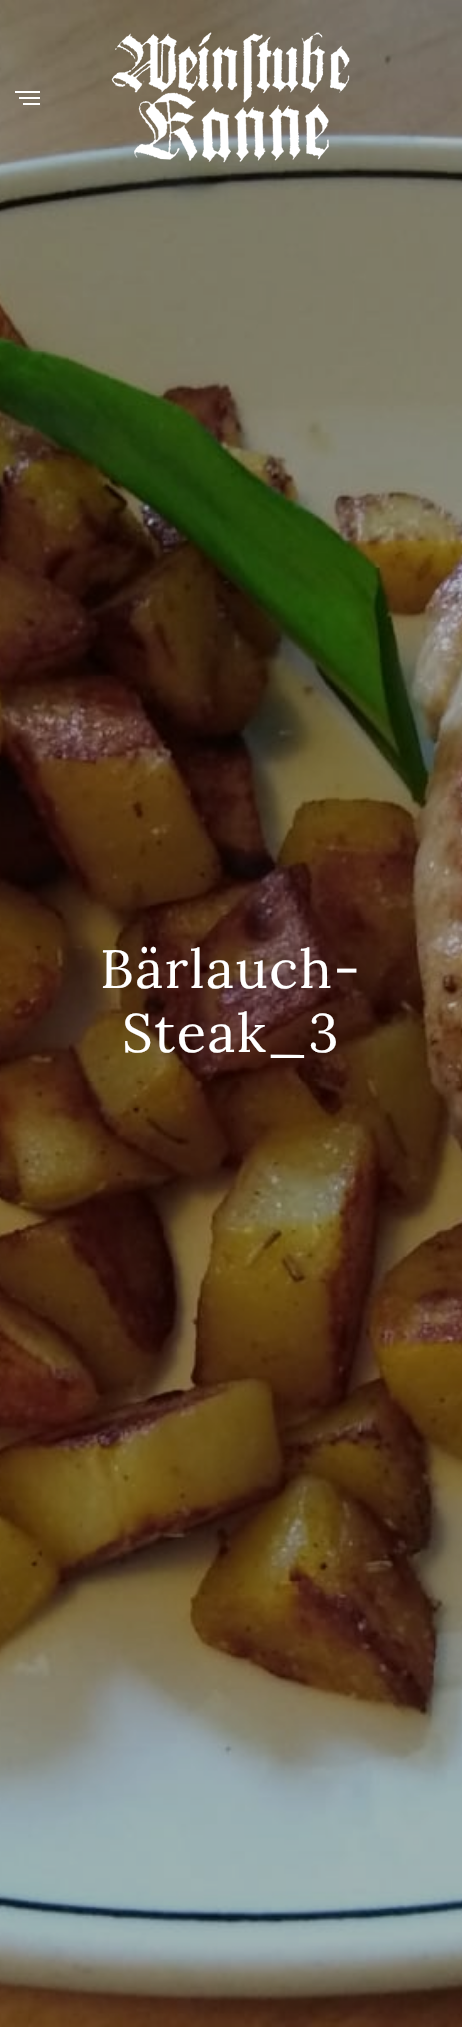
#include "include/core/SkBlurTypes.h"
#include "include/core/SkCanvas.h"
#include "include/core/SkData.h"
#include "include/core/SkFont.h"
#include "include/core/SkFontMgr.h"
#include "include/core/SkImage.h"
#include "include/core/SkMaskFilter.h"
#include "include/core/SkPaint.h"
#include "include/core/SkPathBuilder.h"
#include "include/core/SkTextBlob.h"
#include "include/effects/SkDashPathEffect.h"
#include "include/effects/SkGradientShader.h"
#include "include/utils/SkParsePath.h"

extern sk_sp<SkFontMgr> fontMgr;

static SkFont font(const char* family, int weight, float size, bool italic = false) {
    SkFontStyle style(weight, SkFontStyle::kNormal_Width,
        italic ? SkFontStyle::kItalic_Slant : SkFontStyle::kUpright_Slant);
    SkFont result(fontMgr->matchFamilyStyle(family, style), size);
    result.setSubpixel(true);
    return result;
}

static void drawTracked(SkCanvas* canvas, const char* s, float x, float y, const SkFont& font, const SkPaint& ink, float letter, float word) {
    std::vector<SkGlyphID> glyphs(font.countText(s, strlen(s), SkTextEncoding::kUTF8));
    std::vector<float> xs(glyphs.size());
    font.textToGlyphs(s, strlen(s), SkTextEncoding::kUTF8, glyphs);
    font.getXPos(glyphs, xs, x);
    float extra = 0;
    for (size_t i = 0; i < glyphs.size(); i++) {
        xs[i] += extra;
        extra += letter + word * (glyphs[i] == font.unicharToGlyph(' '));
    }
    canvas->drawTextBlob(SkTextBlob::MakeFromPosHGlyphs(glyphs, xs, y, font), 0, 0, ink);
}

static void fillRect(SkCanvas* canvas, float x, float y, float w, float h, SkColor color) {
    SkPaint ink(SkColor4f::FromColor(color));
    ink.setAntiAlias(true);
    canvas->drawRect(SkRect::MakeXYWH(x, y, w, h), ink);
}

static void drawPhoto(SkCanvas* canvas, const char* path, float x, float y, float w, float h) {
    auto image = SkImages::DeferredFromEncodedData(SkData::MakeFromFileName(path));
    canvas->drawImageRect(image, SkRect::MakeXYWH(x, y, w, h), SkSamplingOptions());
}

void draw(SkCanvas* canvas) {
    SkPaint paint;
    paint.setAntiAlias(true);
    canvas->clear(0xFFFFFFFF);
    drawPhoto(canvas, "assets/img2.png", 0, 0, 462, 2027);
    fillRect(canvas, 15, 91, 25, 2, 0xFFFFFFFF);
    fillRect(canvas, 19, 97, 21, 2, 0xFFFFFFFF);
    fillRect(canvas, 23, 103, 17, 2, 0xFFFFFFFF);
    drawPhoto(canvas, "assets/img1.png", 111, 32, 239, 131);
    SkFont font1 = font("Lora", 400, 54);
    paint.setColor(0xFFFFFFFF);
    drawTracked(canvas, "Bärlauch-", 100, 988, font1, paint, 1.6f, 0);
    drawTracked(canvas, "Steak_3", 122, 1052, font1, paint, 1.6f, 0);
}
